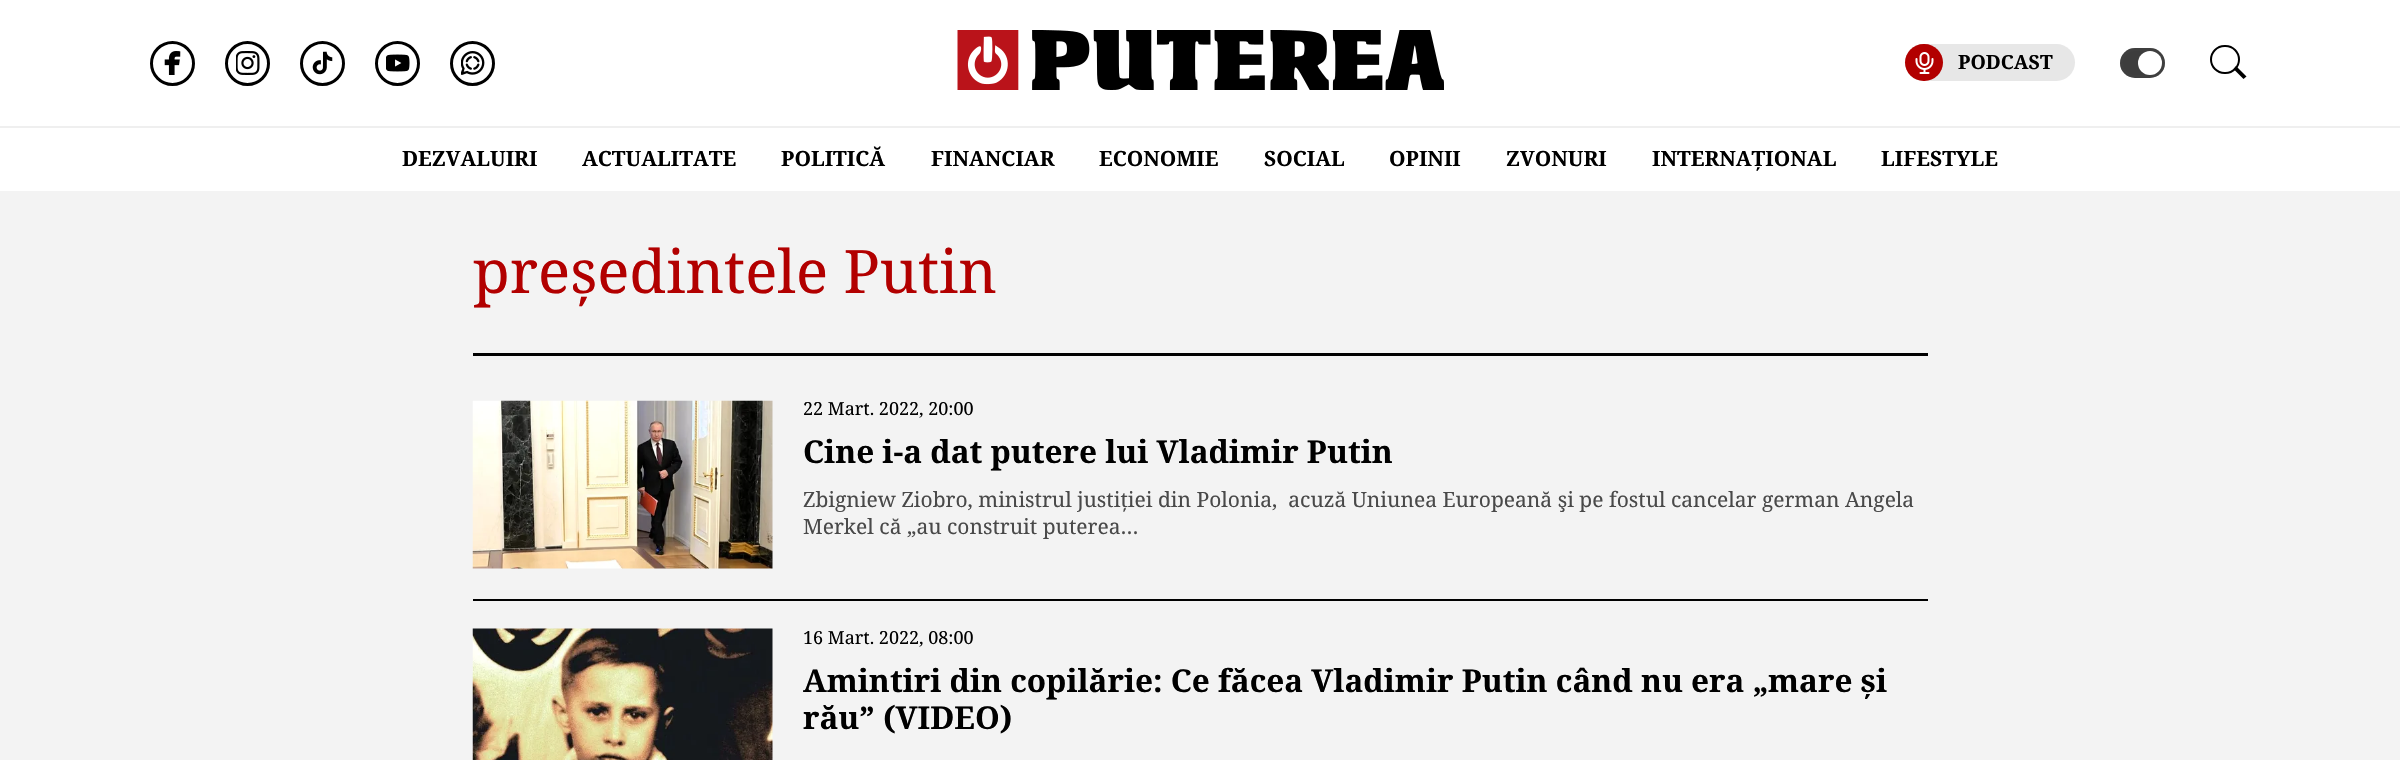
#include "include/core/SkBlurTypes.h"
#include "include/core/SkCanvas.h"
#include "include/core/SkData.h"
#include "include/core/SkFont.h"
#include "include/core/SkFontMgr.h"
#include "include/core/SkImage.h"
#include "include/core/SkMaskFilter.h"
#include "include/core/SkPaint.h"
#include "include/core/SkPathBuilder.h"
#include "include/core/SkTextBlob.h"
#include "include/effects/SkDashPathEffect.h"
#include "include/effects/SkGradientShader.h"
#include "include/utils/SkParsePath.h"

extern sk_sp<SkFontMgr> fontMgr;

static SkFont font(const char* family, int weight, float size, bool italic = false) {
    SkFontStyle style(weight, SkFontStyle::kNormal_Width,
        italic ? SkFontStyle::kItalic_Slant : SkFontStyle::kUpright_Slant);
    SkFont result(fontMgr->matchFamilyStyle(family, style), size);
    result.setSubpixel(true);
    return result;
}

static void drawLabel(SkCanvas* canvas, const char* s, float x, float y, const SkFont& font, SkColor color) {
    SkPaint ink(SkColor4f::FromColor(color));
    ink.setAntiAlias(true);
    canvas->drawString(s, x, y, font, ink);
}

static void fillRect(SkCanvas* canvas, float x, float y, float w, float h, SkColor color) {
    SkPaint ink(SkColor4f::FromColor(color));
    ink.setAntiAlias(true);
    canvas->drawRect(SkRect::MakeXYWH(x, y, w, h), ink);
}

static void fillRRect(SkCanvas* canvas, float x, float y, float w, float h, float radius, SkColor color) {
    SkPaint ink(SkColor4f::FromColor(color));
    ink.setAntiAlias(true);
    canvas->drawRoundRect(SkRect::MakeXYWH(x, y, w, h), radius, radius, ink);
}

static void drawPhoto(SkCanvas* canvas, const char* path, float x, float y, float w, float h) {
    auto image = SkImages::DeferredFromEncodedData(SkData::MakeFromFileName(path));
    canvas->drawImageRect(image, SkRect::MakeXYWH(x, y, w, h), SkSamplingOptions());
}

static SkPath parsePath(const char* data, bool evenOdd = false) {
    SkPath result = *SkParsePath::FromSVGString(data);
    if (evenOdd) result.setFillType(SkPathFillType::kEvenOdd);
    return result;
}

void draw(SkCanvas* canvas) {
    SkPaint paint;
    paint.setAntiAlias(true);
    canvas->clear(0xFFF3F3F3);
    fillRect(canvas, 0, 0, 2400, 191, 0xFFFFFFFF);
    paint.setStroke(true);
    paint.setStrokeWidth(3);
    paint.setColor(0xFF000000);
    canvas->drawCircle(172.5f, 63.5f, 21, paint);
    drawPhoto(canvas, "assets/img1.png", 164, 51, 17, 24);
    canvas->drawCircle(247.5f, 63.5f, 21, paint);
    drawPhoto(canvas, "assets/img2.png", 236, 51, 24, 24);
    canvas->drawCircle(322.5f, 63.5f, 21, paint);
    drawPhoto(canvas, "assets/img3.png", 312, 51, 21, 24);
    canvas->drawCircle(397.5f, 63.5f, 21, paint);
    drawPhoto(canvas, "assets/img4.png", 386, 54, 24, 18);
    canvas->drawCircle(472.5f, 63.5f, 21, paint);
    drawPhoto(canvas, "assets/img5.png", 461, 51, 24, 24);
    drawPhoto(canvas, "assets/img6.png", 957, 30, 487, 60);
    fillRRect(canvas, 1905, 44, 170, 37, 18.5f, 0xFFE7E7E7);
    fillRRect(canvas, 1905, 44, 38, 37, 18.5f, 0xFFB20000);
    drawPhoto(canvas, "assets/img7.png", 1915, 52, 19, 22);
    SkFont font1 = font("Noto Serif", 700, 19.5f);
    drawLabel(canvas, "PODCAST", 1958, 69, font1, 0xFF000000);
    fillRRect(canvas, 2120, 48, 45, 30, 15, 0xFF3D3D3D);
    paint.setColor(0x45444444);
    canvas->drawRoundRect(SkRect::MakeXYWH(2121.5f, 49.5f, 42, 27), 13.5f, 13.5f, paint);
    paint.setStroke(false);
    paint.setColor(0xFFFFFFFF);
    canvas->drawCircle(2150, 63, 12, paint);
    paint.setStroke(true);
    paint.setStrokeWidth(2);
    paint.setColor(0xFF000000);
    canvas->drawRoundRect(SkRect::MakeXYWH(2211, 46, 28, 27), 13.5f, 13.5f, paint);
    paint.setStroke(false);
    canvas->drawPath(parsePath("M2233.5 69L2236 66L2246.5 76.5L2243.5 79Z"), paint);
    fillRect(canvas, 0, 126, 2400, 2, 0xFFEFEFEF);
    SkFont font2 = font("Noto Serif", 700, 21);
    drawLabel(canvas, "DEZVALUIRI", 402, 166, font2, 0xFF000000);
    drawLabel(canvas, "ACTUALITATE", 582, 166, font2, 0xFF000000);
    drawLabel(canvas, "POLITICĂ", 781, 166, font2, 0xFF000000);
    drawLabel(canvas, "FINANCIAR", 931, 166, font2, 0xFF000000);
    drawLabel(canvas, "ECONOMIE", 1099, 166, font2, 0xFF000000);
    drawLabel(canvas, "SOCIAL", 1264, 166, font2, 0xFF000000);
    drawLabel(canvas, "OPINII", 1389, 166, font2, 0xFF000000);
    drawLabel(canvas, "ZVONURI", 1506, 166, font2, 0xFF000000);
    drawLabel(canvas, "INTERNAȚIONAL", 1652, 166, font2, 0xFF000000);
    drawLabel(canvas, "LIFESTYLE", 1881, 166, font2, 0xFF000000);
    fillRect(canvas, 473, 353, 1455, 3, 0xFF000000);
    SkFont font3 = font("Noto Serif", 400, 60);
    drawLabel(canvas, "președintele Putin", 473, 293, font3, 0xFFB20000);
    drawPhoto(canvas, "assets/img8.png", 472, 400, 301, 169);
    SkFont font4 = font("Noto Serif", 400, 18);
    drawLabel(canvas, "22 Mart. 2022, 20:00", 803, 415, font4, 0xFF000000);
    SkFont font5 = font("Noto Serif", 700, 31.5f);
    drawLabel(canvas, "Cine i-a dat putere lui Vladimir Putin", 803, 463, font5, 0xFF000000);
    SkFont font6 = font("Noto Serif", 400, 21);
    drawLabel(canvas, "Zbigniew Ziobro, ministrul justiției din Polonia,  acuză Uniunea Europeană şi pe fostul cancelar german Angela", 803, 507, font6, 0xFF494949);
    drawLabel(canvas, "Merkel că „au construit puterea…", 803, 534, font6, 0xFF494949);
    fillRect(canvas, 473, 599, 1455, 2, 0xFF000000);
    drawPhoto(canvas, "assets/img9.png", 472, 628, 301, 132);
    drawLabel(canvas, "16 Mart. 2022, 08:00", 803, 644, font4, 0xFF000000);
    drawLabel(canvas, "Amintiri din copilărie: Ce făcea Vladimir Putin când nu era „mare și", 803, 692, font5, 0xFF000000);
    drawLabel(canvas, "rău” (VIDEO)", 803, 729, font5, 0xFF000000);
}
